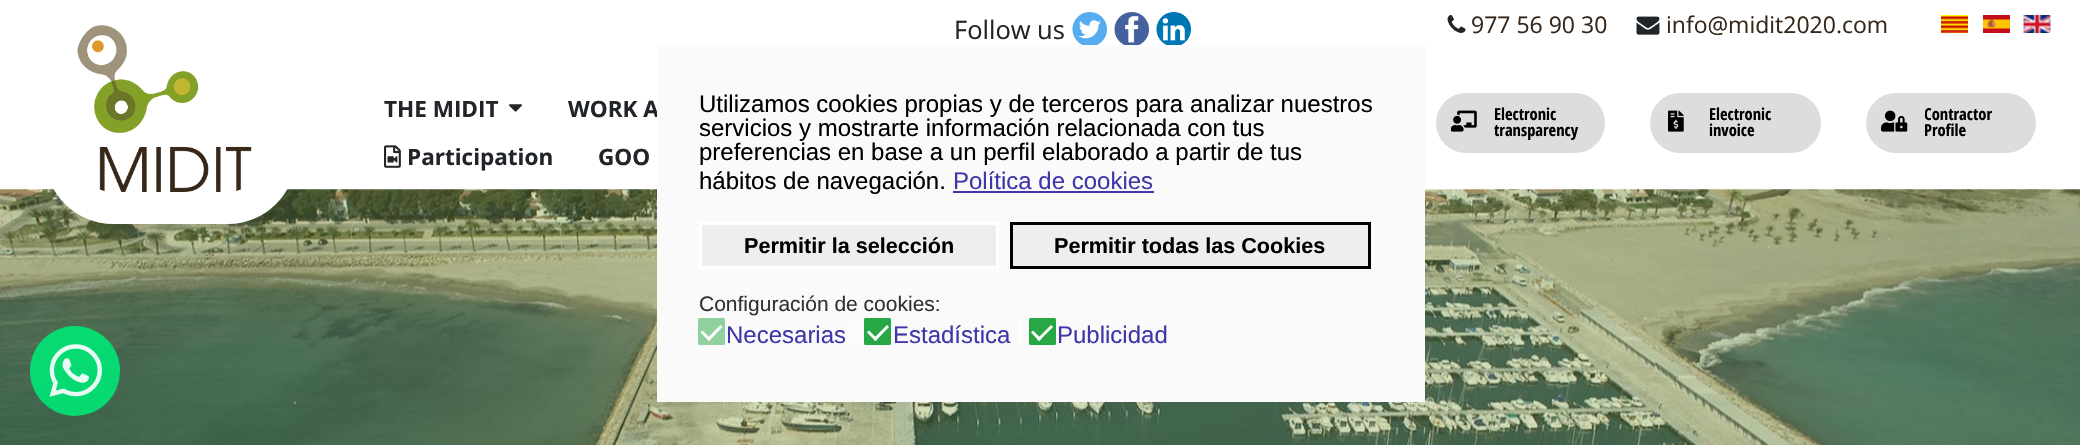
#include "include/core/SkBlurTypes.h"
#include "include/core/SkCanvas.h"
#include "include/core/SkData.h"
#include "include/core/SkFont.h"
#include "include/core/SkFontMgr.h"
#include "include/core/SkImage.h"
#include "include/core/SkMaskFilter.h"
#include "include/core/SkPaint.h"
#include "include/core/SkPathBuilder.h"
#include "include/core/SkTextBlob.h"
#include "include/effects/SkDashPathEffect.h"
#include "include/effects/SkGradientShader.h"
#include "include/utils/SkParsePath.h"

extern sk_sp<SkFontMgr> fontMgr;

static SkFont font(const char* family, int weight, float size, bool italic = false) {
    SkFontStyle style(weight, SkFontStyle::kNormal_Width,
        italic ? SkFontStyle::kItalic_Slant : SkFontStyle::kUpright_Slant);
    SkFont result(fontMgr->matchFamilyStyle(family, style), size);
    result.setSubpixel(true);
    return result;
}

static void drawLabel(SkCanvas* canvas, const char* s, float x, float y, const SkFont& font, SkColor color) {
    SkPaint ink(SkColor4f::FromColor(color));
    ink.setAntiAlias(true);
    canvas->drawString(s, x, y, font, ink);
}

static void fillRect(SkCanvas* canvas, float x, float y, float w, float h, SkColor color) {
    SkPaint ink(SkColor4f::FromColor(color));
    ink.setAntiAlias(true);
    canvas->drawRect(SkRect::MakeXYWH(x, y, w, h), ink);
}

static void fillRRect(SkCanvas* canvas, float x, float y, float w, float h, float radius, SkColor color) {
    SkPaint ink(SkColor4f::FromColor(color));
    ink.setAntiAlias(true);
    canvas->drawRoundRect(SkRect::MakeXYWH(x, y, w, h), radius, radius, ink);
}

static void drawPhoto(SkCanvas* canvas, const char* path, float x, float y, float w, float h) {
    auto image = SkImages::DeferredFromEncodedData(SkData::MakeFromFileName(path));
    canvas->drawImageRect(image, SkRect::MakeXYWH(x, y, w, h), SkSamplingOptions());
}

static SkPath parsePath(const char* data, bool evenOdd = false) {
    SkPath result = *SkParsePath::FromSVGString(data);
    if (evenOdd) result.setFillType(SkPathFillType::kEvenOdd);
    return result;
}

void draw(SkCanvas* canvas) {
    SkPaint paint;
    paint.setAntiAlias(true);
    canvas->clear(0xFFFFFFFF);
    SkFont font1 = font("Open Sans", 400, 25.5f);
    drawLabel(canvas, "Follow us", 954, 39, font1, 0xFF212529);
    drawPhoto(canvas, "assets/img1.png", 1072, 12, 35, 33);
    drawPhoto(canvas, "assets/img2.png", 1114, 12, 35, 33);
    drawPhoto(canvas, "assets/img3.png", 1156, 12, 35, 33);
    drawPhoto(canvas, "assets/img4.png", 1447, 15, 19, 18);
    SkFont font2 = font("Open Sans", 400, 23);
    drawLabel(canvas, "977 56 90 30", 1471, 33, font2, 0xFF362719);
    drawPhoto(canvas, "assets/img5.png", 1636, 16, 24, 19);
    drawLabel(canvas, "info@midit2020.com", 1666, 33, font2, 0xFF362719);
    drawPhoto(canvas, "assets/img6.png", 1941, 15, 27, 18);
    drawPhoto(canvas, "assets/img7.png", 1983, 15, 27, 18);
    drawPhoto(canvas, "assets/img8.png", 2023, 15, 28, 18);
    drawPhoto(canvas, "assets/img15.png", 0, 189, 2080, 256);
    fillRRect(canvas, 45, -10, 251, 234, 68, 0xFFFFFFFF);
    drawPhoto(canvas, "assets/img9.png", 77, 25, 175, 167);
    SkFont font3 = font("Open Sans", 700, 22.5f);
    drawLabel(canvas, "THE MIDIT", 384, 117, font3, 0xFF212529);
    drawPhoto(canvas, "assets/img10.png", 509, 104, 13, 8);
    drawLabel(canvas, "WORK A", 568, 117, font3, 0xFF212529);
    drawPhoto(canvas, "assets/img11.png", 384, 145, 17, 23);
    drawLabel(canvas, "Participation", 407, 165, font3, 0xFF212529);
    drawLabel(canvas, "GOO", 598, 165, font3, 0xFF212529);
    fillRRect(canvas, 1436, 93, 169, 60, 30, 0xFFDDDDDD);
    drawPhoto(canvas, "assets/img12.png", 1451, 110, 26, 22);
    SkFont font4 = font("Open Sans Condensed", 700, 16.5f);
    drawLabel(canvas, "Electronic", 1494, 120, font4, 0xFF000000);
    drawLabel(canvas, "transparency", 1494, 136, font4, 0xFF000000);
    fillRRect(canvas, 1650, 93, 171, 60, 30, 0xFFDDDDDD);
    drawPhoto(canvas, "assets/img13.png", 1668, 110, 16, 22);
    drawLabel(canvas, "Electronic", 1709, 120, font4, 0xFF000000);
    drawLabel(canvas, "invoice", 1709, 136, font4, 0xFF000000);
    fillRRect(canvas, 1866, 93, 170, 60, 30, 0xFFDDDDDD);
    drawPhoto(canvas, "assets/img14.png", 1881, 110, 27, 22);
    canvas->save();
    canvas->clipRect(SkRect::MakeXYWH(1925, 93, 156, 53));
    drawLabel(canvas, "Contractor", 1924, 120, font4, 0xFF000000);
    canvas->restore();
    drawLabel(canvas, "Profile", 1924, 136, font4, 0xFF000000);
    paint.setColor(0xE600E676);
    canvas->drawCircle(75, 371, 45, paint);
    drawPhoto(canvas, "assets/img16.png", 49, 344, 53, 53);
    fillRect(canvas, 657, 45, 768, 357, 0xFFFAFAFA);
    SkFont font5 = font("Liberation Sans", 400, 24);
    drawLabel(canvas, "Utilizamos cookies propias y de terceros para analizar nuestros", 699, 112, font5, 0xFF000000);
    drawLabel(canvas, "servicios y mostrarte información relacionada con tus", 699, 136, font5, 0xFF000000);
    drawLabel(canvas, "preferencias en base a un perfil elaborado a partir de tus", 699, 160, font5, 0xFF000000);
    drawLabel(canvas, "hábitos de navegación.", 699, 189, font5, 0xFF000000);
    drawLabel(canvas, "Política de cookies", 953, 189, font5, 0xFF4036AA);
    fillRect(canvas, 953, 191, 201, 2, 0xFF4036AA);
    paint.setColor(0xFFEEEEEE);
    canvas->drawRect(SkRect::MakeXYWH(700.5f, 223.5f, 297, 44), paint);
    paint.setStroke(true);
    paint.setStrokeWidth(3);
    paint.setColor(0xFFFFFFFF);
    canvas->drawRect(SkRect::MakeXYWH(700.5f, 223.5f, 297, 44), paint);
    SkFont font6 = font("Liberation Sans", 700, 21.6f);
    drawLabel(canvas, "Permitir la selección", 744, 253, font6, 0xFF000000);
    paint.setStroke(false);
    paint.setColor(0xFFEEEEEE);
    canvas->drawRect(SkRect::MakeXYWH(1011.5f, 223.5f, 358, 44), paint);
    paint.setStroke(true);
    paint.setColor(0xFF000000);
    canvas->drawRect(SkRect::MakeXYWH(1011.5f, 223.5f, 358, 44), paint);
    drawLabel(canvas, "Permitir todas las Cookies", 1054, 253, font6, 0xFF000000);
    SkFont font7 = font("Liberation Sans", 400, 21);
    drawLabel(canvas, "Configuración de cookies:", 699, 311, font7, 0xFF323232);
    paint.setStroke(false);
    paint.setColor(0xFF91D1A0);
    canvas->drawRoundRect(SkRect::MakeXYWH(699, 319, 25, 25), 0.5f, 0.5f, paint);
    paint.setStroke(true);
    paint.setStrokeWidth(2);
    canvas->drawRoundRect(SkRect::MakeXYWH(699, 319, 25, 25), 0.5f, 0.5f, paint);
    paint.setStroke(false);
    paint.setColor(0xFFFDFDFD);
    canvas->drawPath(parsePath("M720.5 325L722.5 327L709 341L706.5 339Z"), paint);
    canvas->drawPath(parsePath("M702.5 330.5L711 339L709 341L700.5 332.5Z"), paint);
    fillRect(canvas, 855, 318, 2, 29, 0xFFFEFEFE);
    drawLabel(canvas, "Necesarias", 726, 343, font5, 0xFF4036AA);
    paint.setColor(0xFF28A745);
    canvas->drawRoundRect(SkRect::MakeXYWH(865, 319, 25, 25), 0.5f, 0.5f, paint);
    paint.setStroke(true);
    canvas->drawRoundRect(SkRect::MakeXYWH(865, 319, 25, 25), 0.5f, 0.5f, paint);
    paint.setStroke(false);
    paint.setColor(0xFFFFFFFF);
    canvas->drawPath(parsePath("M887 325L889 327L875.5 341L873 339Z"), paint);
    canvas->drawPath(parsePath("M869 330.5L877.5 339L875.5 341L867 332.5Z"), paint);
    fillRect(canvas, 1020, 318, 2, 29, 0xFFFEFEFE);
    drawLabel(canvas, "Estadística", 893, 343, font5, 0xFF4036AA);
    paint.setColor(0xFF28A745);
    canvas->drawRoundRect(SkRect::MakeXYWH(1030, 319, 25, 25), 0.5f, 0.5f, paint);
    paint.setStroke(true);
    canvas->drawRoundRect(SkRect::MakeXYWH(1030, 319, 25, 25), 0.5f, 0.5f, paint);
    paint.setStroke(false);
    paint.setColor(0xFFFFFFFF);
    canvas->drawPath(parsePath("M1051 325L1053 327L1039 341L1037 339Z"), paint);
    canvas->drawPath(parsePath("M1033 330.5L1041.5 339L1039 341L1031 332.5Z"), paint);
    drawLabel(canvas, "Publicidad", 1057, 343, font5, 0xFF4036AA);
}
